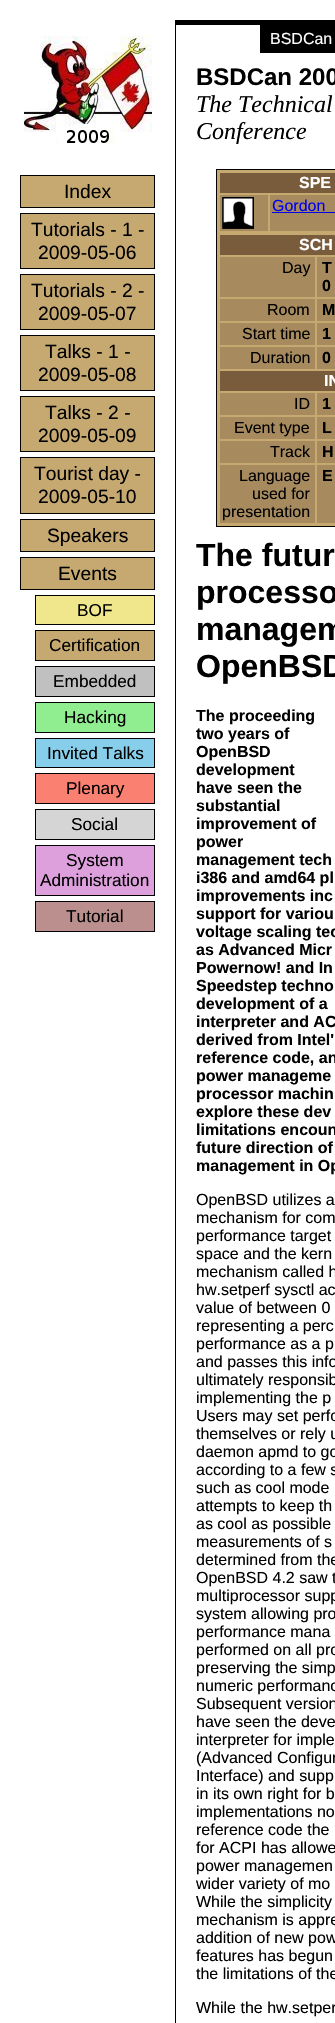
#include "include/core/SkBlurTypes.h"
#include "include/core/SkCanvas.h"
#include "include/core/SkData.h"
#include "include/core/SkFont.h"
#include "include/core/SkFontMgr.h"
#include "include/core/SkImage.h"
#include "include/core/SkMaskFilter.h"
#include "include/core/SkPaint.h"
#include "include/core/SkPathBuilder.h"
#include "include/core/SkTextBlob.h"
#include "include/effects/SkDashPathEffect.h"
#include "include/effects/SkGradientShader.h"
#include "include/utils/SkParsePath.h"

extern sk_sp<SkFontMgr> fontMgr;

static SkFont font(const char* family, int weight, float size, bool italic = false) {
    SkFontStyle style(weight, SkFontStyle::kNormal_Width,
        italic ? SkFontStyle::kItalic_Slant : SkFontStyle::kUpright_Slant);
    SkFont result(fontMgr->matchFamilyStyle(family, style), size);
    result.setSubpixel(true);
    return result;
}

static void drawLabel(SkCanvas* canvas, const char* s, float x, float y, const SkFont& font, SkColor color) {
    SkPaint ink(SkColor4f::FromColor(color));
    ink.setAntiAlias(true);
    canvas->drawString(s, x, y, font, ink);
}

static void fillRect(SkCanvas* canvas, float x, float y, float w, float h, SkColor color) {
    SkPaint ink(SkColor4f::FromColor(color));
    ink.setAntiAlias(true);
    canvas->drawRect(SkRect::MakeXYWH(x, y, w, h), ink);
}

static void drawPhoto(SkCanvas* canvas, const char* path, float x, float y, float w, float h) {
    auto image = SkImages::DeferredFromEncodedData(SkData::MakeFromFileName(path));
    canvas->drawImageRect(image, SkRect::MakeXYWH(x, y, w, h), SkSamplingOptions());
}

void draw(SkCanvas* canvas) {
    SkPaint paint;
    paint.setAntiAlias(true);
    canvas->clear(0xFFFFFFFF);
    drawPhoto(canvas, "assets/img1.png", 24, 35, 128, 109);
    fillRect(canvas, 175, 20, 160, 5, 0xFF000000);
    fillRect(canvas, 175, 20, 1, 2003, 0xFF000000);
    fillRect(canvas, 260, 25, 75, 28, 0xFF000000);
    SkFont font1 = font("Liberation Sans", 400, 16);
    drawLabel(canvas, "BSDCan", 270, 44, font1, 0xFFFFFFFF);
    SkFont font2 = font("Liberation Sans", 700, 24);
    drawLabel(canvas, "BSDCan 200", 196, 85, font2, 0xFF000000);
    SkFont font3 = font("Liberation Serif", 400, 24, true);
    drawLabel(canvas, "The Technical", 196, 112, font3, 0xFF000000);
    drawLabel(canvas, "Conference", 196, 139, font3, 0xFF000000);
    paint.setColor(0xFFC6A971);
    canvas->drawRect(SkRect::MakeXYWH(216.5f, 169.5f, 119, 357), paint);
    paint.setStroke(true);
    paint.setStrokeWidth(1);
    paint.setColor(0xFF000000);
    canvas->drawRect(SkRect::MakeXYWH(216.5f, 169.5f, 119, 357), paint);
    fillRect(canvas, 220, 173, 115, 20, 0xFF795C3C);
    SkFont font4 = font("Liberation Sans", 700, 16);
    drawLabel(canvas, "SPE", 299, 188, font4, 0xFFFFFFFF);
    fillRect(canvas, 220, 195, 48, 36, 0xFFA78A5E);
    drawPhoto(canvas, "assets/img2.png", 222, 197, 32, 32);
    fillRect(canvas, 270, 195, 65, 36, 0xFFA78A5E);
    drawLabel(canvas, "Gordon", 272, 211, font1, 0xFF0000EE);
    fillRect(canvas, 272, 212, 63, 1, 0xFF0000EE);
    fillRect(canvas, 220, 235, 115, 20, 0xFF795C3C);
    drawLabel(canvas, "SCH", 299, 250, font4, 0xFFFFFFFF);
    fillRect(canvas, 220, 257, 95, 40, 0xFFA78A5E);
    drawLabel(canvas, "Day", 282, 273, font1, 0xFF000000);
    fillRect(canvas, 317, 257, 18, 40, 0xFFA78A5E);
    drawLabel(canvas, "T", 322, 273, font4, 0xFF000000);
    drawLabel(canvas, "0", 322, 291, font4, 0xFF000000);
    fillRect(canvas, 220, 299, 95, 22, 0xFFA78A5E);
    drawLabel(canvas, "Room", 267, 315, font1, 0xFF000000);
    fillRect(canvas, 317, 299, 18, 22, 0xFFA78A5E);
    drawLabel(canvas, "M", 322, 315, font4, 0xFF000000);
    fillRect(canvas, 220, 323, 95, 22, 0xFFA78A5E);
    drawLabel(canvas, "Start time", 242, 339, font1, 0xFF000000);
    fillRect(canvas, 317, 323, 18, 22, 0xFFA78A5E);
    drawLabel(canvas, "1", 322, 339, font4, 0xFF000000);
    fillRect(canvas, 220, 347, 95, 22, 0xFFA78A5E);
    drawLabel(canvas, "Duration", 250, 363, font1, 0xFF000000);
    fillRect(canvas, 317, 347, 18, 22, 0xFFA78A5E);
    drawLabel(canvas, "0", 322, 363, font4, 0xFF000000);
    fillRect(canvas, 220, 371, 115, 20, 0xFF795C3C);
    drawLabel(canvas, "IN", 324, 386, font4, 0xFFFFFFFF);
    fillRect(canvas, 220, 393, 95, 22, 0xFFA78A5E);
    drawLabel(canvas, "ID", 294, 409, font1, 0xFF000000);
    fillRect(canvas, 317, 393, 18, 22, 0xFFA78A5E);
    drawLabel(canvas, "1", 322, 409, font4, 0xFF000000);
    fillRect(canvas, 220, 417, 95, 22, 0xFFA78A5E);
    drawLabel(canvas, "Event type", 234, 433, font1, 0xFF000000);
    fillRect(canvas, 317, 417, 18, 22, 0xFFA78A5E);
    drawLabel(canvas, "L", 322, 433, font4, 0xFF000000);
    fillRect(canvas, 220, 441, 95, 22, 0xFFA78A5E);
    drawLabel(canvas, "Track", 270, 457, font1, 0xFF000000);
    fillRect(canvas, 317, 441, 18, 22, 0xFFA78A5E);
    drawLabel(canvas, "H", 322, 457, font4, 0xFF000000);
    fillRect(canvas, 220, 465, 95, 58, 0xFFA78A5E);
    drawLabel(canvas, "Language", 239, 481, font1, 0xFF000000);
    drawLabel(canvas, "used for", 252, 499, font1, 0xFF000000);
    drawLabel(canvas, "presentation", 222, 517, font1, 0xFF000000);
    fillRect(canvas, 317, 465, 18, 58, 0xFFA78A5E);
    drawLabel(canvas, "E", 322, 481, font4, 0xFF000000);
    SkFont font5 = font("Liberation Sans", 700, 32);
    drawLabel(canvas, "The futur", 196, 566, font5, 0xFF000000);
    drawLabel(canvas, "processo", 196, 603, font5, 0xFF000000);
    drawLabel(canvas, "managem", 196, 640, font5, 0xFF000000);
    drawLabel(canvas, "OpenBSD", 196, 677, font5, 0xFF000000);
    drawLabel(canvas, "The proceeding", 196, 721, font4, 0xFF000000);
    drawLabel(canvas, "two years of", 196, 739, font4, 0xFF000000);
    drawLabel(canvas, "OpenBSD", 196, 757, font4, 0xFF000000);
    drawLabel(canvas, "development", 196, 775, font4, 0xFF000000);
    drawLabel(canvas, "have seen the", 196, 793, font4, 0xFF000000);
    drawLabel(canvas, "substantial", 196, 811, font4, 0xFF000000);
    drawLabel(canvas, "improvement of", 196, 829, font4, 0xFF000000);
    drawLabel(canvas, "power", 196, 847, font4, 0xFF000000);
    drawLabel(canvas, "management tech", 196, 865, font4, 0xFF000000);
    drawLabel(canvas, "i386 and amd64 pl", 196, 883, font4, 0xFF000000);
    drawLabel(canvas, "improvements inc", 196, 901, font4, 0xFF000000);
    drawLabel(canvas, "support for variou", 196, 919, font4, 0xFF000000);
    drawLabel(canvas, "voltage scaling tec", 196, 937, font4, 0xFF000000);
    drawLabel(canvas, "as Advanced Micr", 196, 955, font4, 0xFF000000);
    drawLabel(canvas, "Powernow! and In", 196, 973, font4, 0xFF000000);
    drawLabel(canvas, "Speedstep techno", 196, 991, font4, 0xFF000000);
    drawLabel(canvas, "development of a", 196, 1009, font4, 0xFF000000);
    drawLabel(canvas, "interpreter and AC", 196, 1027, font4, 0xFF000000);
    drawLabel(canvas, "derived from Intel'", 196, 1045, font4, 0xFF000000);
    drawLabel(canvas, "reference code, an", 196, 1063, font4, 0xFF000000);
    drawLabel(canvas, "power manageme", 196, 1081, font4, 0xFF000000);
    drawLabel(canvas, "processor machin", 196, 1099, font4, 0xFF000000);
    drawLabel(canvas, "explore these dev", 196, 1117, font4, 0xFF000000);
    drawLabel(canvas, "limitations encoun", 196, 1135, font4, 0xFF000000);
    drawLabel(canvas, "future direction of", 196, 1153, font4, 0xFF000000);
    drawLabel(canvas, "management in Op", 196, 1171, font4, 0xFF000000);
    drawLabel(canvas, "OpenBSD utilizes a", 196, 1205, font1, 0xFF000000);
    drawLabel(canvas, "mechanism for com", 196, 1223, font1, 0xFF000000);
    drawLabel(canvas, "performance target", 196, 1241, font1, 0xFF000000);
    drawLabel(canvas, "space and the kern", 196, 1259, font1, 0xFF000000);
    drawLabel(canvas, "mechanism called h", 196, 1277, font1, 0xFF000000);
    drawLabel(canvas, "hw.setperf sysctl ac", 196, 1295, font1, 0xFF000000);
    drawLabel(canvas, "value of between 0", 196, 1313, font1, 0xFF000000);
    drawLabel(canvas, "representing a perc", 196, 1331, font1, 0xFF000000);
    drawLabel(canvas, "performance as a p", 196, 1349, font1, 0xFF000000);
    drawLabel(canvas, "and passes this info", 196, 1367, font1, 0xFF000000);
    drawLabel(canvas, "ultimately responsib", 196, 1385, font1, 0xFF000000);
    drawLabel(canvas, "implementing the p", 196, 1403, font1, 0xFF000000);
    drawLabel(canvas, "Users may set perfo", 196, 1421, font1, 0xFF000000);
    drawLabel(canvas, "themselves or rely u", 196, 1439, font1, 0xFF000000);
    drawLabel(canvas, "daemon apmd to go", 196, 1457, font1, 0xFF000000);
    drawLabel(canvas, "according to a few s", 196, 1475, font1, 0xFF000000);
    drawLabel(canvas, "such as cool mode", 196, 1493, font1, 0xFF000000);
    drawLabel(canvas, "attempts to keep th", 196, 1511, font1, 0xFF000000);
    drawLabel(canvas, "as cool as possible", 196, 1529, font1, 0xFF000000);
    drawLabel(canvas, "measurements of s", 196, 1547, font1, 0xFF000000);
    drawLabel(canvas, "determined from the", 196, 1565, font1, 0xFF000000);
    drawLabel(canvas, "OpenBSD 4.2 saw t", 196, 1583, font1, 0xFF000000);
    drawLabel(canvas, "multiprocessor supp", 196, 1601, font1, 0xFF000000);
    drawLabel(canvas, "system allowing pro", 196, 1619, font1, 0xFF000000);
    drawLabel(canvas, "performance mana", 196, 1637, font1, 0xFF000000);
    drawLabel(canvas, "performed on all pro", 196, 1655, font1, 0xFF000000);
    drawLabel(canvas, "preserving the simp", 196, 1673, font1, 0xFF000000);
    drawLabel(canvas, "numeric performanc", 196, 1691, font1, 0xFF000000);
    drawLabel(canvas, "Subsequent version", 196, 1709, font1, 0xFF000000);
    drawLabel(canvas, "have seen the deve", 196, 1727, font1, 0xFF000000);
    drawLabel(canvas, "interpreter for imple", 196, 1745, font1, 0xFF000000);
    drawLabel(canvas, "(Advanced Configur", 196, 1763, font1, 0xFF000000);
    drawLabel(canvas, "Interface) and supp", 196, 1781, font1, 0xFF000000);
    drawLabel(canvas, "in its own right for b", 196, 1799, font1, 0xFF000000);
    drawLabel(canvas, "implementations no", 196, 1817, font1, 0xFF000000);
    drawLabel(canvas, "reference code the", 196, 1835, font1, 0xFF000000);
    drawLabel(canvas, "for ACPI has allowe", 196, 1853, font1, 0xFF000000);
    drawLabel(canvas, "power managemen", 196, 1871, font1, 0xFF000000);
    drawLabel(canvas, "wider variety of mo", 196, 1889, font1, 0xFF000000);
    drawLabel(canvas, "While the simplicity", 196, 1907, font1, 0xFF000000);
    drawLabel(canvas, "mechanism is appre", 196, 1925, font1, 0xFF000000);
    drawLabel(canvas, "addition of new pow", 196, 1943, font1, 0xFF000000);
    drawLabel(canvas, "features has begun", 196, 1961, font1, 0xFF000000);
    drawLabel(canvas, "the limitations of the", 196, 1979, font1, 0xFF000000);
    drawLabel(canvas, "While the hw.setper", 196, 2013, font1, 0xFF000000);
    paint.setStroke(false);
    paint.setColor(0xFFC6A971);
    canvas->drawRect(SkRect::MakeXYWH(20.5f, 175.5f, 134, 32), paint);
    paint.setStroke(true);
    paint.setColor(0xFF000000);
    canvas->drawRect(SkRect::MakeXYWH(20.5f, 175.5f, 134, 32), paint);
    SkFont font6 = font("Liberation Sans", 400, 19.25f);
    drawLabel(canvas, "Index", 64, 198, font6, 0xFF000000);
    paint.setStroke(false);
    paint.setColor(0xFFC6A971);
    canvas->drawRect(SkRect::MakeXYWH(20.5f, 213.5f, 134, 55), paint);
    paint.setStroke(true);
    paint.setColor(0xFF000000);
    canvas->drawRect(SkRect::MakeXYWH(20.5f, 213.5f, 134, 55), paint);
    drawLabel(canvas, "Tutorials - 1 -", 31, 236, font6, 0xFF000000);
    drawLabel(canvas, "2009-05-06", 38, 259, font6, 0xFF000000);
    paint.setStroke(false);
    paint.setColor(0xFFC6A971);
    canvas->drawRect(SkRect::MakeXYWH(20.5f, 274.5f, 134, 55), paint);
    paint.setStroke(true);
    paint.setColor(0xFF000000);
    canvas->drawRect(SkRect::MakeXYWH(20.5f, 274.5f, 134, 55), paint);
    drawLabel(canvas, "Tutorials - 2 -", 31, 297, font6, 0xFF000000);
    drawLabel(canvas, "2009-05-07", 38, 320, font6, 0xFF000000);
    paint.setStroke(false);
    paint.setColor(0xFFC6A971);
    canvas->drawRect(SkRect::MakeXYWH(20.5f, 335.5f, 134, 55), paint);
    paint.setStroke(true);
    paint.setColor(0xFF000000);
    canvas->drawRect(SkRect::MakeXYWH(20.5f, 335.5f, 134, 55), paint);
    drawLabel(canvas, "Talks - 1 -", 45, 358, font6, 0xFF000000);
    drawLabel(canvas, "2009-05-08", 38, 381, font6, 0xFF000000);
    paint.setStroke(false);
    paint.setColor(0xFFC6A971);
    canvas->drawRect(SkRect::MakeXYWH(20.5f, 396.5f, 134, 55), paint);
    paint.setStroke(true);
    paint.setColor(0xFF000000);
    canvas->drawRect(SkRect::MakeXYWH(20.5f, 396.5f, 134, 55), paint);
    drawLabel(canvas, "Talks - 2 -", 45, 419, font6, 0xFF000000);
    drawLabel(canvas, "2009-05-09", 38, 442, font6, 0xFF000000);
    paint.setStroke(false);
    paint.setColor(0xFFC6A971);
    canvas->drawRect(SkRect::MakeXYWH(20.5f, 457.5f, 134, 56), paint);
    paint.setStroke(true);
    paint.setColor(0xFF000000);
    canvas->drawRect(SkRect::MakeXYWH(20.5f, 457.5f, 134, 56), paint);
    drawLabel(canvas, "Tourist day -", 34, 480, font6, 0xFF000000);
    drawLabel(canvas, "2009-05-10", 38, 503, font6, 0xFF000000);
    paint.setStroke(false);
    paint.setColor(0xFFC6A971);
    canvas->drawRect(SkRect::MakeXYWH(20.5f, 519.5f, 134, 32), paint);
    paint.setStroke(true);
    paint.setColor(0xFF000000);
    canvas->drawRect(SkRect::MakeXYWH(20.5f, 519.5f, 134, 32), paint);
    drawLabel(canvas, "Speakers", 47, 542, font6, 0xFF000000);
    paint.setStroke(false);
    paint.setColor(0xFFC6A971);
    canvas->drawRect(SkRect::MakeXYWH(20.5f, 557.5f, 134, 32), paint);
    paint.setStroke(true);
    paint.setColor(0xFF000000);
    canvas->drawRect(SkRect::MakeXYWH(20.5f, 557.5f, 134, 32), paint);
    drawLabel(canvas, "Events", 58, 580, font6, 0xFF000000);
    paint.setStroke(false);
    paint.setColor(0xFFF0E68C);
    canvas->drawRect(SkRect::MakeXYWH(35.5f, 595.5f, 119, 29), paint);
    paint.setStroke(true);
    paint.setColor(0xFF000000);
    canvas->drawRect(SkRect::MakeXYWH(35.5f, 595.5f, 119, 29), paint);
    SkFont font7 = font("Liberation Sans", 400, 17.25f);
    drawLabel(canvas, "BOF", 77, 616, font7, 0xFF000000);
    paint.setStroke(false);
    paint.setColor(0xFFC6A971);
    canvas->drawRect(SkRect::MakeXYWH(35.5f, 630.5f, 119, 30), paint);
    paint.setStroke(true);
    paint.setColor(0xFF000000);
    canvas->drawRect(SkRect::MakeXYWH(35.5f, 630.5f, 119, 30), paint);
    drawLabel(canvas, "Certification", 49, 651, font7, 0xFF000000);
    paint.setStroke(false);
    paint.setColor(0xFFC0C0C0);
    canvas->drawRect(SkRect::MakeXYWH(35.5f, 666.5f, 119, 30), paint);
    paint.setStroke(true);
    paint.setColor(0xFF000000);
    canvas->drawRect(SkRect::MakeXYWH(35.5f, 666.5f, 119, 30), paint);
    drawLabel(canvas, "Embedded", 53, 687, font7, 0xFF000000);
    paint.setStroke(false);
    paint.setColor(0xFF90EE90);
    canvas->drawRect(SkRect::MakeXYWH(35.5f, 702.5f, 119, 30), paint);
    paint.setStroke(true);
    paint.setColor(0xFF000000);
    canvas->drawRect(SkRect::MakeXYWH(35.5f, 702.5f, 119, 30), paint);
    drawLabel(canvas, "Hacking", 64, 723, font7, 0xFF000000);
    paint.setStroke(false);
    paint.setColor(0xFF87CEEB);
    canvas->drawRect(SkRect::MakeXYWH(35.5f, 738.5f, 119, 29), paint);
    paint.setStroke(true);
    paint.setColor(0xFF000000);
    canvas->drawRect(SkRect::MakeXYWH(35.5f, 738.5f, 119, 29), paint);
    drawLabel(canvas, "Invited Talks", 47, 759, font7, 0xFF000000);
    paint.setStroke(false);
    paint.setColor(0xFFFA8072);
    canvas->drawRect(SkRect::MakeXYWH(35.5f, 773.5f, 119, 30), paint);
    paint.setStroke(true);
    paint.setColor(0xFF000000);
    canvas->drawRect(SkRect::MakeXYWH(35.5f, 773.5f, 119, 30), paint);
    drawLabel(canvas, "Plenary", 66, 794, font7, 0xFF000000);
    paint.setStroke(false);
    paint.setColor(0xFFD5D5D5);
    canvas->drawRect(SkRect::MakeXYWH(35.5f, 809.5f, 119, 30), paint);
    paint.setStroke(true);
    paint.setColor(0xFF000000);
    canvas->drawRect(SkRect::MakeXYWH(35.5f, 809.5f, 119, 30), paint);
    drawLabel(canvas, "Social", 71, 830, font7, 0xFF000000);
    paint.setStroke(false);
    paint.setColor(0xFFDDA0DD);
    canvas->drawRect(SkRect::MakeXYWH(35.5f, 845.5f, 119, 50), paint);
    paint.setStroke(true);
    paint.setColor(0xFF000000);
    canvas->drawRect(SkRect::MakeXYWH(35.5f, 845.5f, 119, 50), paint);
    drawLabel(canvas, "System", 66, 866, font7, 0xFF000000);
    drawLabel(canvas, "Administration", 40, 886, font7, 0xFF000000);
    paint.setStroke(false);
    paint.setColor(0xFFBC8F8F);
    canvas->drawRect(SkRect::MakeXYWH(35.5f, 901.5f, 119, 30), paint);
    paint.setStroke(true);
    paint.setColor(0xFF000000);
    canvas->drawRect(SkRect::MakeXYWH(35.5f, 901.5f, 119, 30), paint);
    drawLabel(canvas, "Tutorial", 66, 922, font7, 0xFF000000);
}
